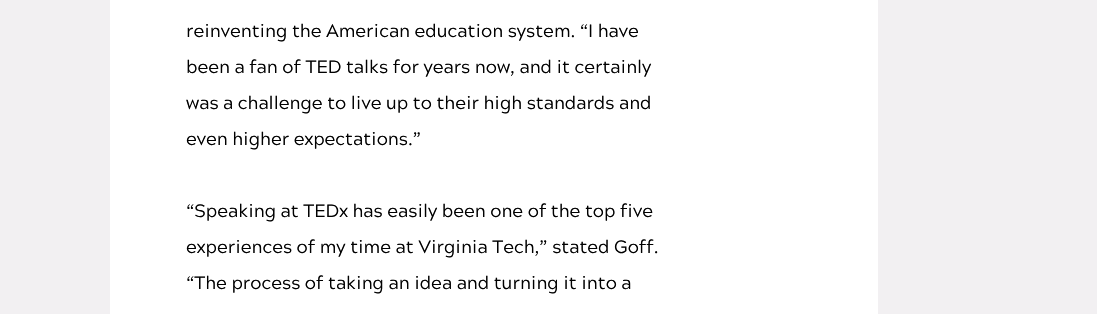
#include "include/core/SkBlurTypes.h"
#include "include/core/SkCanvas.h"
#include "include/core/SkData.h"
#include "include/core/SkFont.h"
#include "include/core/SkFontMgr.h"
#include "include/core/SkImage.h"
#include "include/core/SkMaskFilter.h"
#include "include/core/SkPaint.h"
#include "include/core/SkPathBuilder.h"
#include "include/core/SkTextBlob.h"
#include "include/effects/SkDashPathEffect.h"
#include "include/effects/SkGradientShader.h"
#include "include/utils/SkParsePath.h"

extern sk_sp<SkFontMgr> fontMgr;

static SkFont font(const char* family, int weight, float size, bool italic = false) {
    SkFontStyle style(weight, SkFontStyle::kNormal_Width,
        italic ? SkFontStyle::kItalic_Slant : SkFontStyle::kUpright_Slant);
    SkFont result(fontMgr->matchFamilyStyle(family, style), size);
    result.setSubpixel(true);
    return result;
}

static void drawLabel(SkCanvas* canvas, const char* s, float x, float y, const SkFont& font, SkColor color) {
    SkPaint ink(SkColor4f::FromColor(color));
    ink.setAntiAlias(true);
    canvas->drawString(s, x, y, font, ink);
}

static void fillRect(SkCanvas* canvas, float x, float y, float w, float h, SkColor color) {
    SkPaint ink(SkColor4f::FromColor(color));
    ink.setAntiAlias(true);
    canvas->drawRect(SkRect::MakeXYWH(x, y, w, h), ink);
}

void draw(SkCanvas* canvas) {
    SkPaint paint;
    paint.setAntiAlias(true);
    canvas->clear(0xFFF2F0F2);
    fillRect(canvas, 110, 0, 768, 314, 0xFFFFFFFF);
    SkFont font1 = font("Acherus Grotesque", 400, 18);
    drawLabel(canvas, "reinventing the American education system. “I have", 186, 37, font1, 0xFF000000);
    drawLabel(canvas, "been a fan of TED talks for years now, and it certainly", 186, 73, font1, 0xFF000000);
    drawLabel(canvas, "was a challenge to live up to their high standards and", 186, 109, font1, 0xFF000000);
    drawLabel(canvas, "even higher expectations.”", 186, 145, font1, 0xFF000000);
    drawLabel(canvas, "“Speaking at TEDx has easily been one of the top five", 186, 217, font1, 0xFF000000);
    drawLabel(canvas, "experiences of my time at Virginia Tech,” stated Goff.", 186, 253, font1, 0xFF000000);
    drawLabel(canvas, "“The process of taking an idea and turning it into a", 186, 289, font1, 0xFF000000);
}
